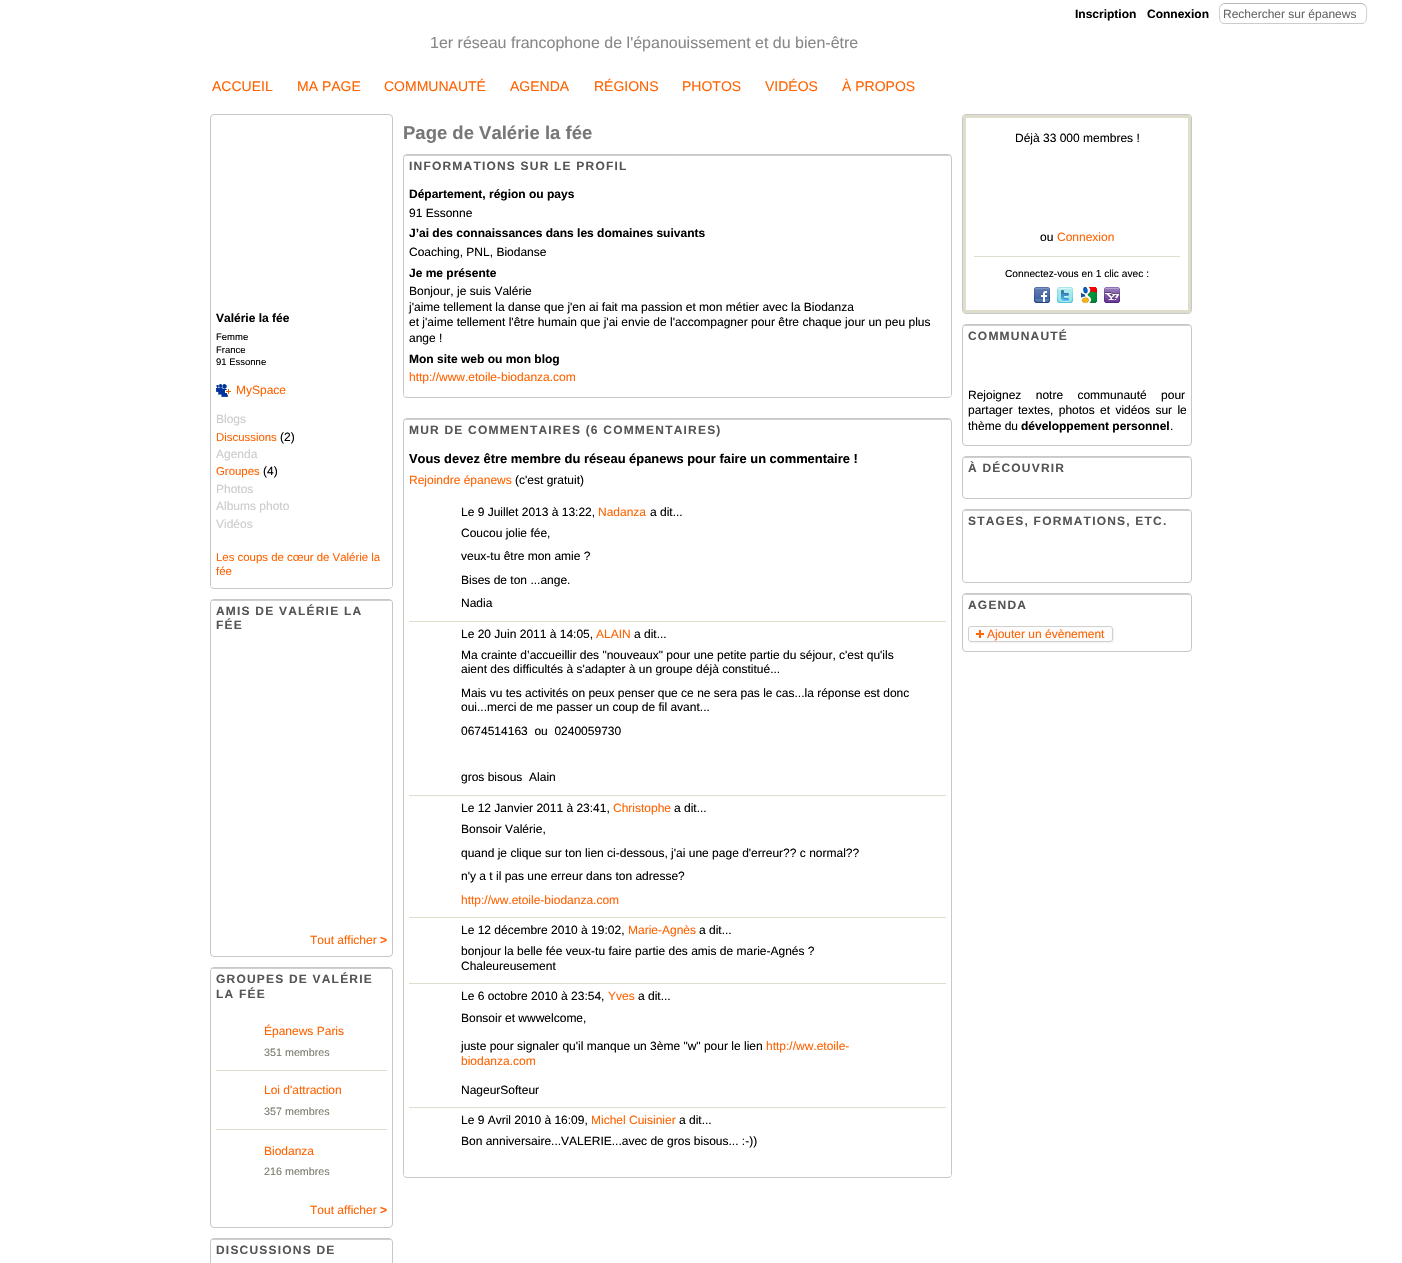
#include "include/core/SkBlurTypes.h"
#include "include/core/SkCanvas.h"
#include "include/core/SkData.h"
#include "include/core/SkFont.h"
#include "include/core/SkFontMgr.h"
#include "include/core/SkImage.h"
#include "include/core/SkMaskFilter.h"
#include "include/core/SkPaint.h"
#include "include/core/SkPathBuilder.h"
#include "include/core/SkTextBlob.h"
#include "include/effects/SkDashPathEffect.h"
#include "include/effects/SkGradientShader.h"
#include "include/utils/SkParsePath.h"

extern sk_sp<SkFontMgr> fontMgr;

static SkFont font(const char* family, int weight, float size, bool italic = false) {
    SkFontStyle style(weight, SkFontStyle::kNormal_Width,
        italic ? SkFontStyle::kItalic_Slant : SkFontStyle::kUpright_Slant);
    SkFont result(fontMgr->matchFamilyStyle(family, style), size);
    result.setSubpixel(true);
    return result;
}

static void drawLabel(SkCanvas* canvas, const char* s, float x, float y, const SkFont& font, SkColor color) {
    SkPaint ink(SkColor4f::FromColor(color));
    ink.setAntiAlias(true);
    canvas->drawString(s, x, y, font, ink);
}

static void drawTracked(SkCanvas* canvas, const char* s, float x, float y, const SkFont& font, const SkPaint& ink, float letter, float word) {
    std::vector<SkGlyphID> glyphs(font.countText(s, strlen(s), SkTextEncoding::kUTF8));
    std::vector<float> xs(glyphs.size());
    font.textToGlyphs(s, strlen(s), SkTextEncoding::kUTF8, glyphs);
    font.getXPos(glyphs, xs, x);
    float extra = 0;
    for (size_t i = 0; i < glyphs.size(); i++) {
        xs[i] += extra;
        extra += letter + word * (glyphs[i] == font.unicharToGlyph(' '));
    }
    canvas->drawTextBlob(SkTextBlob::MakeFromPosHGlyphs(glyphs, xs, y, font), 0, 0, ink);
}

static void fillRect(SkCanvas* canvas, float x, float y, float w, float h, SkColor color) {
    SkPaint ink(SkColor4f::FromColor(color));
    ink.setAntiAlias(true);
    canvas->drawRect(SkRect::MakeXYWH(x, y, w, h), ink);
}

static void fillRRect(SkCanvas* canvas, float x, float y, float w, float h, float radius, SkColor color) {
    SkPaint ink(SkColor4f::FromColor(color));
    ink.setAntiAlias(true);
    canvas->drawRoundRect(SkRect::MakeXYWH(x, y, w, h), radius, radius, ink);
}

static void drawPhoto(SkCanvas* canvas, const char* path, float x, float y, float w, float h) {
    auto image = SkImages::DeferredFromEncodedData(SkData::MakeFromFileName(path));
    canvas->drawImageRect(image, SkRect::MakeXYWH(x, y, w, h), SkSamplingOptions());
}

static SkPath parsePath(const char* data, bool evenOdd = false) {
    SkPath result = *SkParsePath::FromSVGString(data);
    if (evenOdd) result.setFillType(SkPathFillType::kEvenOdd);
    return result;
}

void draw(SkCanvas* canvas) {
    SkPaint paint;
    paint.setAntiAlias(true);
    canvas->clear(0xFFFFFFFF);
    SkFont font1 = font("Liberation Sans", 700, 12);
    drawLabel(canvas, "Inscription", 1075, 18, font1, 0xFF000000);
    drawLabel(canvas, "Connexion", 1147, 18, font1, 0xFF000000);
    paint.setStroke(true);
    paint.setStrokeWidth(1);
    paint.setColor(0xFFBBBBBB);
    canvas->drawPath(parsePath("M1221 5L1223.5 3.5H1339H1362L1365 5"), paint);
    paint.setColor(0xFFCCCCCC);
    canvas->drawPath(parsePath("M1365 5C1367.5 7.5 1366.5 14 1366.5 17C1366.5 20 1365.5 23.5 1362 23.5H1224C1220.5 23.5 1219.5 20 1219.5 17C1219.5 14 1218.5 7.5 1221 5"), paint);
    SkFont font2 = font("Liberation Sans", 400, 12);
    drawLabel(canvas, "Rechercher sur épanews", 1223, 18, font2, 0xFF666666);
    SkFont font3 = font("Liberation Sans", 400, 16);
    drawLabel(canvas, "1er réseau francophone de l'épanouissement et du bien-être", 430, 48, font3, 0xFF888888);
    SkFont font4 = font("Liberation Sans", 400, 14);
    drawLabel(canvas, "ACCUEIL", 212, 91, font4, 0xFFFF6200);
    drawLabel(canvas, "MA PAGE", 297, 91, font4, 0xFFFF6200);
    drawLabel(canvas, "COMMUNAUTÉ", 384, 91, font4, 0xFFFF6200);
    drawLabel(canvas, "AGENDA", 510, 91, font4, 0xFFFF6200);
    drawLabel(canvas, "RÉGIONS", 594, 91, font4, 0xFFFF6200);
    drawLabel(canvas, "PHOTOS", 682, 91, font4, 0xFFFF6200);
    drawLabel(canvas, "VIDÉOS", 765, 91, font4, 0xFFFF6200);
    drawLabel(canvas, "À PROPOS", 842, 91, font4, 0xFFFF6200);
    paint.setColor(0xFFC7C7C7);
    canvas->drawRoundRect(SkRect::MakeXYWH(210.5f, 114.5f, 182, 474), 3.5f, 3.5f, paint);
    drawLabel(canvas, "Valérie la fée", 216, 322, font1, 0xFF000000);
    SkFont font5 = font("Liberation Sans", 400, 9.5f);
    drawLabel(canvas, "Femme", 216, 340, font5, 0xFF000000);
    drawLabel(canvas, "France", 216, 353, font5, 0xFF000000);
    drawLabel(canvas, "91 Essonne", 216, 365, font5, 0xFF000000);
    drawPhoto(canvas, "assets/img1.png", 216, 384, 15, 13);
    drawLabel(canvas, "MySpace", 236, 394, font2, 0xFFFF6200);
    drawLabel(canvas, "Blogs", 216, 423, font2, 0xFFCCCCCC);
    SkFont font6 = font("Liberation Sans", 400, 11.4f);
    drawLabel(canvas, "Discussions", 216, 441, font6, 0xFFFF6200);
    drawLabel(canvas, "(2)", 280, 441, font2, 0xFF000000);
    drawLabel(canvas, "Agenda", 216, 458, font2, 0xFFCCCCCC);
    drawLabel(canvas, "Groupes", 216, 475, font6, 0xFFFF6200);
    drawLabel(canvas, "(4)", 263, 475, font2, 0xFF000000);
    drawLabel(canvas, "Photos", 216, 493, font2, 0xFFCCCCCC);
    drawLabel(canvas, "Albums photo", 216, 510, font2, 0xFFCCCCCC);
    drawLabel(canvas, "Vidéos", 216, 528, font2, 0xFFCCCCCC);
    fillRect(canvas, 211, 585, 181, 2, 0xFFFFFFFF);
    drawLabel(canvas, "Les coups de cœur de Valérie la", 216, 561, font6, 0xFFFF6200);
    drawLabel(canvas, "fée", 216, 575, font6, 0xFFFF6200);
    canvas->drawRoundRect(SkRect::MakeXYWH(210.5f, 599.5f, 182, 357), 3.5f, 3.5f, paint);
    fillRect(canvas, 211, 600, 181, 1, 0xFFD0D0D0);
    paint.setStroke(false);
    paint.setColor(0xFF555555);
    drawTracked(canvas, "AMIS DE VALÉRIE LA", 216, 615, font1, paint, 1.2f, 0);
    drawTracked(canvas, "FÉE", 216, 629, font1, paint, 1.2f, 0);
    drawLabel(canvas, "Tout afficher", 310, 944, font2, 0xFFFF6200);
    drawLabel(canvas, ">", 380, 944, font1, 0xFFFF6200);
    paint.setStroke(true);
    paint.setColor(0xFFC7C7C7);
    canvas->drawRoundRect(SkRect::MakeXYWH(210.5f, 967.5f, 182, 260), 3.5f, 3.5f, paint);
    fillRect(canvas, 211, 968, 181, 1, 0xFFD0D0D0);
    paint.setStroke(false);
    paint.setColor(0xFF555555);
    drawTracked(canvas, "GROUPES DE VALÉRIE", 216, 983, font1, paint, 1.2f, 0);
    drawTracked(canvas, "LA FÉE", 216, 998, font1, paint, 1.2f, 0);
    fillRect(canvas, 216, 1070, 171, 1, 0xFFDFDDCB);
    drawLabel(canvas, "Épanews Paris", 264, 1035, font2, 0xFFFF6200);
    SkFont font7 = font("Liberation Sans", 400, 10.75f);
    drawLabel(canvas, "351 membres", 264, 1056, font7, 0xFF7B7B6F);
    fillRect(canvas, 216, 1129, 171, 1, 0xFFDFDDCB);
    drawLabel(canvas, "Loi d'attraction", 264, 1094, font2, 0xFFFF6200);
    drawLabel(canvas, "357 membres", 264, 1115, font7, 0xFF7B7B6F);
    drawLabel(canvas, "Biodanza", 264, 1155, font2, 0xFFFF6200);
    drawLabel(canvas, "216 membres", 264, 1175, font7, 0xFF7B7B6F);
    drawLabel(canvas, "Tout afficher", 310, 1214, font2, 0xFFFF6200);
    drawLabel(canvas, ">", 380, 1214, font1, 0xFFFF6200);
    paint.setStroke(true);
    paint.setColor(0xFFC7C7C7);
    canvas->drawRoundRect(SkRect::MakeXYWH(210.5f, 1238.5f, 182, 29), 3.5f, 3.5f, paint);
    fillRect(canvas, 211, 1239, 181, 1, 0xFFD0D0D0);
    paint.setStroke(false);
    paint.setColor(0xFF555555);
    drawTracked(canvas, "DISCUSSIONS DE", 216, 1254, font1, paint, 1.2f, 0);
    SkFont font8 = font("Liberation Sans", 700, 18.5f);
    drawLabel(canvas, "Page de Valérie la fée", 403, 139, font8, 0xFF777777);
    paint.setStroke(true);
    paint.setColor(0xFFC7C7C7);
    canvas->drawRoundRect(SkRect::MakeXYWH(403.5f, 154.5f, 548, 243), 3.5f, 3.5f, paint);
    fillRect(canvas, 404, 155, 547, 1, 0xFFD0D0D0);
    paint.setStroke(false);
    paint.setColor(0xFF555555);
    drawTracked(canvas, "INFORMATIONS SUR LE PROFIL", 409, 170, font1, paint, 1.2f, 0);
    fillRect(canvas, 404, 394, 547, 2, 0xFFFFFFFF);
    drawLabel(canvas, "Département, région ou pays", 409, 198, font1, 0xFF000000);
    drawLabel(canvas, "91 Essonne", 409, 217, font2, 0xFF000000);
    drawLabel(canvas, "J’ai des connaissances dans les domaines suivants", 409, 237, font1, 0xFF000000);
    drawLabel(canvas, "Coaching, PNL, Biodanse", 409, 256, font2, 0xFF000000);
    drawLabel(canvas, "Je me présente", 409, 277, font1, 0xFF000000);
    drawLabel(canvas, "Bonjour, je suis Valérie", 409, 295, font2, 0xFF000000);
    drawLabel(canvas, "j'aime tellement la danse que j'en ai fait ma passion et mon métier avec la Biodanza", 409, 311, font2, 0xFF000000);
    drawLabel(canvas, "et j'aime tellement l'être humain que j'ai envie de l'accompagner pour être chaque jour un peu plus", 409, 326, font2, 0xFF000000);
    drawLabel(canvas, "ange !", 409, 342, font2, 0xFF000000);
    drawLabel(canvas, "Mon site web ou mon blog", 409, 363, font1, 0xFF000000);
    drawLabel(canvas, "http://www.etoile-biodanza.com", 409, 381, font2, 0xFFFF6200);
    paint.setStroke(true);
    paint.setColor(0xFFC7C7C7);
    canvas->drawRoundRect(SkRect::MakeXYWH(403.5f, 418.5f, 548, 759), 3.5f, 3.5f, paint);
    fillRect(canvas, 404, 419, 547, 1, 0xFFD0D0D0);
    paint.setStroke(false);
    paint.setColor(0xFF555555);
    drawTracked(canvas, "MUR DE COMMENTAIRES (6 COMMENTAIRES)", 409, 434, font1, paint, 1.2f, 0);
    SkFont font9 = font("Liberation Sans", 700, 12.9f);
    drawLabel(canvas, "Vous devez être membre du réseau épanews pour faire un commentaire !", 409, 463, font9, 0xFF000000);
    drawLabel(canvas, "Rejoindre épanews", 409, 484, font2, 0xFFFF6200);
    drawLabel(canvas, "(c'est gratuit)", 515, 484, font2, 0xFF000000);
    fillRect(canvas, 404, 1174, 547, 2, 0xFFFFFFFF);
    fillRect(canvas, 409, 621, 537, 1, 0xFFDFDDCB);
    drawLabel(canvas, "Le 9 Juillet 2013 à 13:22,", 461, 516, font2, 0xFF000000);
    drawLabel(canvas, "Nadanza", 598, 516, font2, 0xFFFF6200);
    drawLabel(canvas, "a dit...", 650, 516, font2, 0xFF000000);
    drawLabel(canvas, "Coucou jolie fée,", 461, 537, font2, 0xFF000000);
    drawLabel(canvas, "veux-tu être mon amie ?", 461, 560, font2, 0xFF000000);
    drawLabel(canvas, "Bises de ton ...ange.", 461, 584, font2, 0xFF000000);
    drawLabel(canvas, "Nadia", 461, 607, font2, 0xFF000000);
    fillRect(canvas, 409, 795, 537, 1, 0xFFDFDDCB);
    drawLabel(canvas, "Le 20 Juin 2011 à 14:05,", 461, 638, font2, 0xFF000000);
    drawLabel(canvas, "ALAIN", 596, 638, font2, 0xFFFF6200);
    drawLabel(canvas, "a dit...", 634, 638, font2, 0xFF000000);
    drawLabel(canvas, "Ma crainte d’accueillir des \"nouveaux\" pour une petite partie du séjour, c'est qu'ils", 461, 659, font2, 0xFF000000);
    drawLabel(canvas, "aient des difficultés à s'adapter à un groupe déjà constitué...", 461, 673, font2, 0xFF000000);
    drawLabel(canvas, "Mais vu tes activités on peux penser que ce ne sera pas le cas...la réponse est donc", 461, 697, font2, 0xFF000000);
    drawLabel(canvas, "oui...merci de me passer un coup de fil avant...", 461, 711, font2, 0xFF000000);
    drawLabel(canvas, "0674514163  ou  0240059730", 461, 735, font2, 0xFF000000);
    drawLabel(canvas, "gros bisous  Alain", 461, 781, font2, 0xFF000000);
    fillRect(canvas, 409, 917, 537, 1, 0xFFDFDDCB);
    drawLabel(canvas, "Le 12 Janvier 2011 à 23:41,", 461, 812, font2, 0xFF000000);
    drawLabel(canvas, "Christophe", 613, 812, font2, 0xFFFF6200);
    drawLabel(canvas, "a dit...", 674, 812, font2, 0xFF000000);
    drawLabel(canvas, "Bonsoir Valérie,", 461, 833, font2, 0xFF000000);
    drawLabel(canvas, "quand je clique sur ton lien ci-dessous, j'ai une page d'erreur?\077 c normal?\077", 461, 857, font2, 0xFF000000);
    drawLabel(canvas, "n'y a t il pas une erreur dans ton adresse?", 461, 880, font2, 0xFF000000);
    drawLabel(canvas, "http://ww.etoile-biodanza.com", 461, 904, font2, 0xFFFF6200);
    fillRect(canvas, 409, 983, 537, 1, 0xFFDFDDCB);
    drawLabel(canvas, "Le 12 décembre 2010 à 19:02,", 461, 934, font2, 0xFF000000);
    drawLabel(canvas, "Marie-Agnès", 628, 934, font2, 0xFFFF6200);
    drawLabel(canvas, "a dit...", 699, 934, font2, 0xFF000000);
    drawLabel(canvas, "bonjour la belle fée veux-tu faire partie des amis de marie-Agnés ?", 461, 955, font2, 0xFF000000);
    drawLabel(canvas, "Chaleureusement", 461, 970, font2, 0xFF000000);
    fillRect(canvas, 409, 1107, 537, 1, 0xFFDFDDCB);
    drawLabel(canvas, "Le 6 octobre 2010 à 23:54,", 461, 1000, font2, 0xFF000000);
    drawLabel(canvas, "Yves", 608, 1000, font2, 0xFFFF6200);
    drawLabel(canvas, "a dit...", 638, 1000, font2, 0xFF000000);
    drawLabel(canvas, "Bonsoir et wwwelcome,", 461, 1022, font2, 0xFF000000);
    drawLabel(canvas, "juste pour signaler qu'il manque un 3ème \"w\" pour le lien", 461, 1050, font2, 0xFF000000);
    drawLabel(canvas, "http://ww.etoile-", 766, 1050, font2, 0xFFFF6200);
    drawLabel(canvas, "biodanza.com", 461, 1065, font2, 0xFFFF6200);
    drawLabel(canvas, "NageurSofteur", 461, 1094, font2, 0xFF000000);
    drawLabel(canvas, "Le 9 Avril 2010 à 16:09,", 461, 1124, font2, 0xFF000000);
    drawLabel(canvas, "Michel Cuisinier", 591, 1124, font2, 0xFFFF6200);
    drawLabel(canvas, "a dit...", 679, 1124, font2, 0xFF000000);
    drawLabel(canvas, "Bon anniversaire...VALERIE...avec de gros bisous... :-))", 461, 1145, font2, 0xFF000000);
    paint.setStroke(true);
    paint.setColor(0xFFC7C7C7);
    canvas->drawRoundRect(SkRect::MakeXYWH(962.5f, 114.5f, 229, 199), 3.5f, 3.5f, paint);
    paint.setStrokeWidth(3);
    paint.setColor(0xFFDFDDCB);
    canvas->drawRect(SkRect::MakeXYWH(964.5f, 116.5f, 225, 195), paint);
    drawLabel(canvas, "Déjà 33 000 membres !", 1015, 142, font2, 0xFF000000);
    drawLabel(canvas, "ou", 1040, 241, font2, 0xFF000000);
    drawLabel(canvas, "Connexion", 1057, 241, font2, 0xFFFF6200);
    fillRect(canvas, 974, 256, 206, 1, 0xFFDFDDCB);
    SkFont font10 = font("Liberation Sans", 400, 10.2f);
    drawLabel(canvas, "Connectez-vous en 1 clic avec :", 1005, 277, font10, 0xFF000000);
    drawPhoto(canvas, "assets/img2.png", 1034, 287, 16, 16);
    drawPhoto(canvas, "assets/img3.png", 1057, 287, 16, 16);
    drawPhoto(canvas, "assets/img4.png", 1081, 287, 16, 16);
    drawPhoto(canvas, "assets/img5.png", 1104, 287, 16, 16);
    paint.setStrokeWidth(1);
    paint.setColor(0xFFC7C7C7);
    canvas->drawRoundRect(SkRect::MakeXYWH(962.5f, 324.5f, 229, 121), 3.5f, 3.5f, paint);
    fillRect(canvas, 963, 325, 228, 1, 0xFFD0D0D0);
    paint.setStroke(false);
    paint.setColor(0xFF555555);
    drawTracked(canvas, "COMMUNAUTÉ", 968, 340, font1, paint, 1.2f, 0);
    paint.setColor(0xFF000000);
    drawTracked(canvas, "Rejoignez notre communauté pour", 968, 399, font2, paint, 0, 11);
    drawTracked(canvas, "partager textes, photos et vidéos sur le", 968, 414, font2, paint, 0, 2);
    drawLabel(canvas, "thème du", 968, 430, font2, 0xFF000000);
    drawLabel(canvas, "développement personnel", 1021, 430, font1, 0xFF000000);
    drawLabel(canvas, ".", 1170, 430, font2, 0xFF000000);
    paint.setStroke(true);
    paint.setColor(0xFFC7C7C7);
    canvas->drawRoundRect(SkRect::MakeXYWH(962.5f, 456.5f, 229, 42), 3.5f, 3.5f, paint);
    fillRect(canvas, 963, 457, 228, 1, 0xFFD0D0D0);
    paint.setStroke(false);
    paint.setColor(0xFF555555);
    drawTracked(canvas, "À DÉCOUVRIR", 968, 472, font1, paint, 1.2f, 0);
    paint.setStroke(true);
    paint.setColor(0xFFC7C7C7);
    canvas->drawRoundRect(SkRect::MakeXYWH(962.5f, 509.5f, 229, 73), 3.5f, 3.5f, paint);
    fillRect(canvas, 963, 510, 228, 1, 0xFFD0D0D0);
    paint.setStroke(false);
    paint.setColor(0xFF555555);
    drawTracked(canvas, "STAGES, FORMATIONS, ETC.", 968, 525, font1, paint, 1.2f, 0);
    paint.setStroke(true);
    paint.setColor(0xFFC7C7C7);
    canvas->drawRoundRect(SkRect::MakeXYWH(962.5f, 593.5f, 229, 58), 3.5f, 3.5f, paint);
    fillRect(canvas, 963, 594, 228, 1, 0xFFD0D0D0);
    paint.setStroke(false);
    paint.setColor(0xFF555555);
    drawTracked(canvas, "AGENDA", 968, 609, font1, paint, 1.2f, 0);
    paint.setColor(0xFFF2F2F2);
    paint.setMaskFilter(SkMaskFilter::MakeBlur(kNormal_SkBlurStyle, 0.5f));
    canvas->drawRoundRect(SkRect::MakeXYWH(969, 627, 145, 16), 3, 3, paint);
    paint.setMaskFilter(nullptr);
    fillRRect(canvas, 968, 626, 145, 16, 3, 0xFFFCFCFC);
    drawPhoto(canvas, "assets/img6.png", 976, 630, 8, 8);
    paint.setStroke(true);
    paint.setColor(0xFFD0D0D0);
    canvas->drawRoundRect(SkRect::MakeXYWH(968.5f, 626.5f, 144, 15), 2.5f, 2.5f, paint);
    drawLabel(canvas, "Ajouter un évènement", 987, 638, font2, 0xFFFF6200);
}
